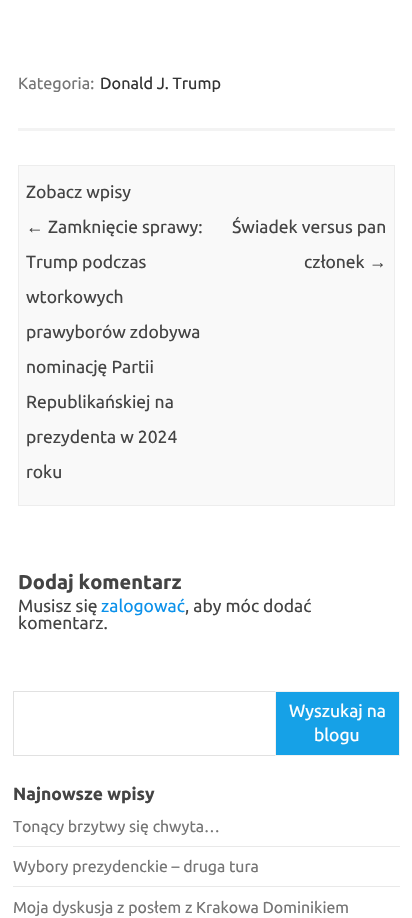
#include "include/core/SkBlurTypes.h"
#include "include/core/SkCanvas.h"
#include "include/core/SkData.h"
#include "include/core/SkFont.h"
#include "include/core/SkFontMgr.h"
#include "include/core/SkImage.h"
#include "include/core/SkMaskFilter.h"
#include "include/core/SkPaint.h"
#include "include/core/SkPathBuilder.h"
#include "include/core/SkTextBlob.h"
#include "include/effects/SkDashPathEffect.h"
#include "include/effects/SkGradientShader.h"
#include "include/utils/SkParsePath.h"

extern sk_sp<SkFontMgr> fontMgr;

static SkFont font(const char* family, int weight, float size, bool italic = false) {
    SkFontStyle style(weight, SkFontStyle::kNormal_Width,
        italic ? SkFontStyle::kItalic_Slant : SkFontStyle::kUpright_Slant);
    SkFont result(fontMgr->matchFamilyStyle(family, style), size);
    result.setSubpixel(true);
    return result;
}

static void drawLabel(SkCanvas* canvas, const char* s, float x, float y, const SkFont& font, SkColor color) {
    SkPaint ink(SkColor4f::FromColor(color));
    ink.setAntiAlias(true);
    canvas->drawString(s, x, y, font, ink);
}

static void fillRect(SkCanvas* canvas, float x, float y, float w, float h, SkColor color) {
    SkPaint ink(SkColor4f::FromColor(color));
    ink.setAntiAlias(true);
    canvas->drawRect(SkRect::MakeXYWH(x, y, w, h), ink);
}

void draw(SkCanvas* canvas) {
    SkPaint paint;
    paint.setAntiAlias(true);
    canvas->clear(0xFFFFFFFF);
    fillRect(canvas, 18, 128, 377, 3, 0xFFF3F3F3);
    SkFont font1 = font("Ubuntu", 400, 16.25f);
    drawLabel(canvas, "Kategoria:", 18, 89, font1, 0xFF757575);
    drawLabel(canvas, "Donald J. Trump", 100, 89, font1, 0xFF333333);
    paint.setColor(0xFFF9F9F9);
    canvas->drawRect(SkRect::MakeXYWH(18.5f, 165.5f, 376, 340), paint);
    paint.setStroke(true);
    paint.setStrokeWidth(1);
    paint.setColor(0xFFEDEDED);
    canvas->drawRect(SkRect::MakeXYWH(18.5f, 165.5f, 376, 340), paint);
    SkFont font2 = font("Ubuntu", 400, 17.5f);
    drawLabel(canvas, "Zobacz wpisy", 26, 198, font2, 0xFF444444);
    SkFont font3 = font("Liberation Sans", 400, 17.5f);
    drawLabel(canvas, "←", 26, 233, font3, 0xFF444444);
    drawLabel(canvas, "Zamknięcie sprawy:", 48, 233, font2, 0xFF444444);
    drawLabel(canvas, "Trump podczas", 26, 268, font2, 0xFF444444);
    drawLabel(canvas, "wtorkowych", 26, 303, font2, 0xFF444444);
    drawLabel(canvas, "prawyborów zdobywa", 26, 338, font2, 0xFF444444);
    drawLabel(canvas, "nominację Partii", 26, 373, font2, 0xFF444444);
    drawLabel(canvas, "Republikańskiej na", 26, 408, font2, 0xFF444444);
    drawLabel(canvas, "prezydenta w 2024", 26, 443, font2, 0xFF444444);
    drawLabel(canvas, "roku", 26, 478, font2, 0xFF444444);
    drawLabel(canvas, "Świadek versus pan", 232, 233, font2, 0xFF444444);
    drawLabel(canvas, "członek", 304, 268, font2, 0xFF444444);
    drawLabel(canvas, "→", 369, 268, font3, 0xFF444444);
    SkFont font4 = font("Ubuntu", 700, 20);
    drawLabel(canvas, "Dodaj komentarz", 18, 589, font4, 0xFF444444);
    drawLabel(canvas, "Musisz się", 18, 612, font2, 0xFF444444);
    drawLabel(canvas, "zalogować", 101, 612, font2, 0xFF0B91EA);
    drawLabel(canvas, ", aby móc dodać", 185, 612, font2, 0xFF444444);
    drawLabel(canvas, "komentarz.", 18, 629, font2, 0xFF444444);
    paint.setColor(0xFFE1E1E1);
    canvas->drawRect(SkRect::MakeXYWH(13.5f, 691.5f, 262, 64), paint);
    paint.setStroke(false);
    paint.setColor(0xFF16A1E7);
    canvas->drawRect(SkRect::MakeXYWH(275.5f, 691.5f, 124, 64), paint);
    paint.setStroke(true);
    paint.setColor(0xFFF1F1F1);
    canvas->drawRect(SkRect::MakeXYWH(275.5f, 691.5f, 124, 64), paint);
    drawLabel(canvas, "Wyszukaj na", 289, 717, font2, 0xFFFFFFFF);
    drawLabel(canvas, "blogu", 314, 741, font2, 0xFFFFFFFF);
    SkFont font5 = font("Ubuntu", 700, 17.5f);
    drawLabel(canvas, "Najnowsze wpisy", 13, 800, font5, 0xFF444444);
    fillRect(canvas, 13, 846, 387, 1, 0xFFE9E9E9);
    SkFont font6 = font("Ubuntu", 400, 15.9f);
    drawLabel(canvas, "Tonący brzytwy się chwyta…", 13, 832, font6, 0xFF757575);
    fillRect(canvas, 13, 886, 387, 1, 0xFFE9E9E9);
    drawLabel(canvas, "Wybory prezydenckie – druga tura", 13, 872, font6, 0xFF757575);
    drawLabel(canvas, "Moja dyskusja z posłem z Krakowa Dominikiem", 13, 913, font6, 0xFF757575);
}
